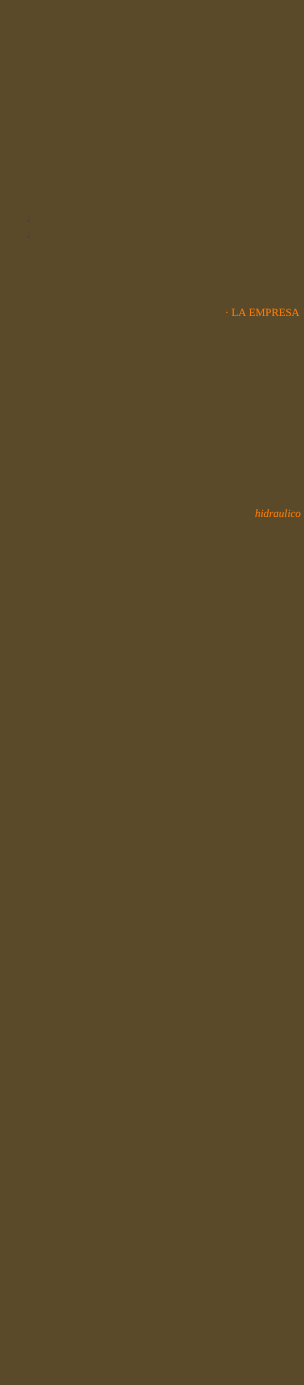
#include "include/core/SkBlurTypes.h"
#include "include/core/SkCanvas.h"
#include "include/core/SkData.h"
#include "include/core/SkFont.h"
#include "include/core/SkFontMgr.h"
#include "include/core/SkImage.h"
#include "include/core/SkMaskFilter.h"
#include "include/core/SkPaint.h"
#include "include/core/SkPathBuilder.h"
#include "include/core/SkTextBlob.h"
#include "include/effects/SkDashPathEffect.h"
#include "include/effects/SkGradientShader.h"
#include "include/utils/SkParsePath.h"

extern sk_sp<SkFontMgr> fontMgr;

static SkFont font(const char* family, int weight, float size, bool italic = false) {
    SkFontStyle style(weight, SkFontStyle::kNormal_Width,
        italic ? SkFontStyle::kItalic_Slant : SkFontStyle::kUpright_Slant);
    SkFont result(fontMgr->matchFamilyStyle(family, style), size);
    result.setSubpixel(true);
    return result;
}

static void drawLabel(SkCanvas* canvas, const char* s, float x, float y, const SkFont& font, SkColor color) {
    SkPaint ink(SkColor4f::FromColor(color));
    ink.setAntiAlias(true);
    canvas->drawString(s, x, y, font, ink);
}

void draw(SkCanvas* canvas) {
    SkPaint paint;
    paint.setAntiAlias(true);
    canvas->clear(0xFF5B4A29);
    paint.setColor(0xFF444444);
    canvas->drawCircle(28.5f, 220.5f, 1.5f, paint);
    canvas->drawCircle(28.5f, 236.5f, 1.5f, paint);
    SkFont font1 = font("Liberation Serif", 400, 11);
    drawLabel(canvas, "· LA EMPRESA", 225, 316, font1, 0xFFFF7A00);
    SkFont font2 = font("Liberation Serif", 400, 11, true);
    drawLabel(canvas, "hidraulico", 255, 517, font2, 0xFFFF7A00);
}
